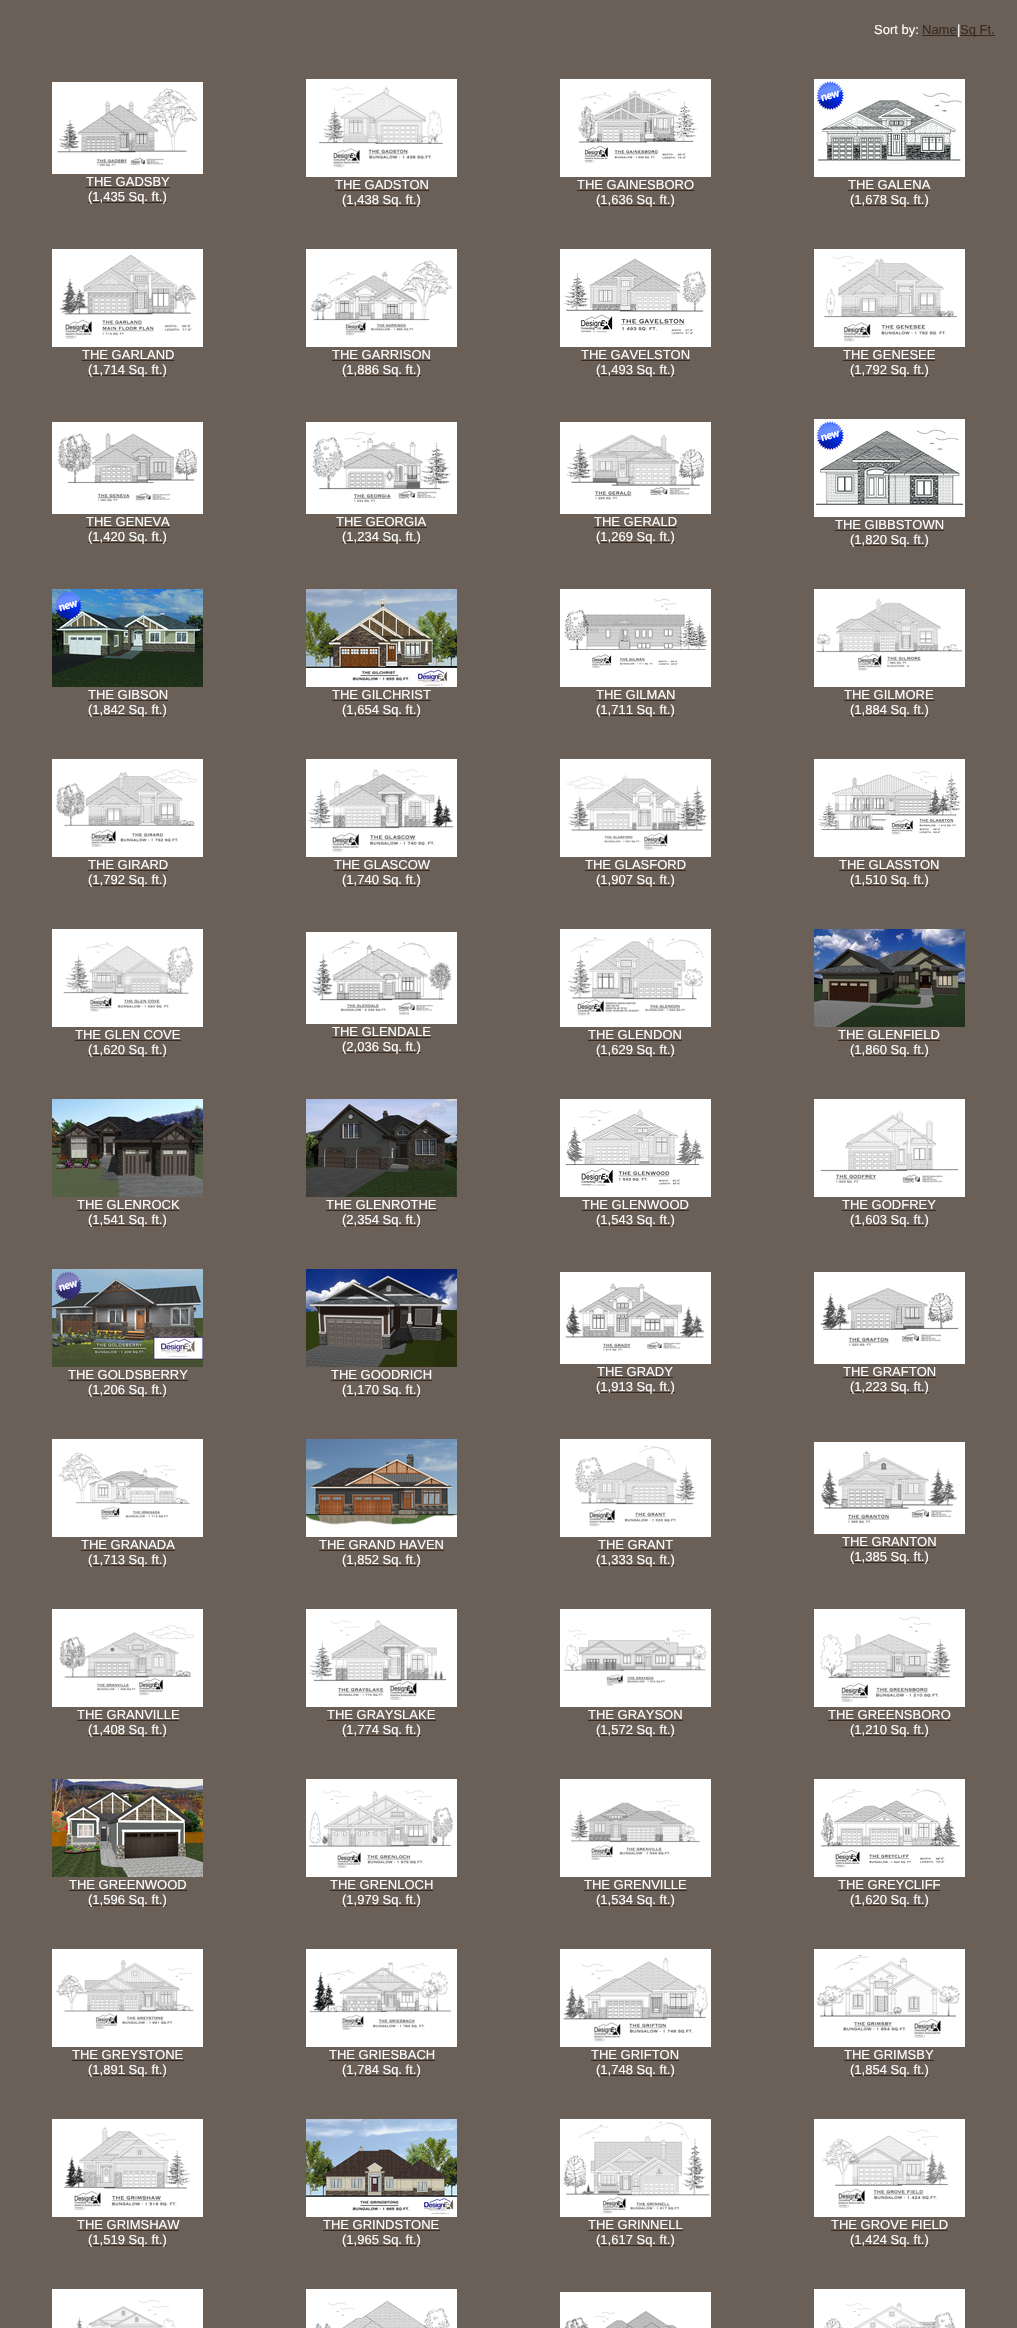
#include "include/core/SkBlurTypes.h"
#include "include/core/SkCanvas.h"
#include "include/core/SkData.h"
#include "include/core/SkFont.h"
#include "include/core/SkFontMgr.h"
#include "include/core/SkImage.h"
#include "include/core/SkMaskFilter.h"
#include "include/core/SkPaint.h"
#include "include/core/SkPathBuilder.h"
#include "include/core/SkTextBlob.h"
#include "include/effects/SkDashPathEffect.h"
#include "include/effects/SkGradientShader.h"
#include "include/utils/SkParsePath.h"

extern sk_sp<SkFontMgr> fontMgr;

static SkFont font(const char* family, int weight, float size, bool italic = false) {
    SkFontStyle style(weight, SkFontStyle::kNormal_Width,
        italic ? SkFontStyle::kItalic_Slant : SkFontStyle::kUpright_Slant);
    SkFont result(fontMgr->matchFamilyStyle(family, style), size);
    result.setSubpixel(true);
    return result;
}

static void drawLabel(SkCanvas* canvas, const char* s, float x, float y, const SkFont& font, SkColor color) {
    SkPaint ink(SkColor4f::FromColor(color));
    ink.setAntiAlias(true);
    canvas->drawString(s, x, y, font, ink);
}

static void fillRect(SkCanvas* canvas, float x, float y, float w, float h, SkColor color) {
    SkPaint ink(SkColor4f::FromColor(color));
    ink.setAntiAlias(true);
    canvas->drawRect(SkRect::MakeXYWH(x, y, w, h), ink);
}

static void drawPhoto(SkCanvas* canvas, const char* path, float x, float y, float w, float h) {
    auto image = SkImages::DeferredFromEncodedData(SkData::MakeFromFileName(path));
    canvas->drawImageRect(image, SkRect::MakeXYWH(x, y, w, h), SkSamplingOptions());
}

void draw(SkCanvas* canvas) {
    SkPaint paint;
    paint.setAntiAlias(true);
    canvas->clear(0xFF6A6057);
    SkFont font1 = font("Liberation Sans", 400, 13);
    drawLabel(canvas, "Sort by:", 874, 34, font1, 0xFFFFFFFF);
    drawLabel(canvas, "Name", 922, 34, font1, 0xFF382A1E);
    fillRect(canvas, 922, 35, 35, 1, 0xFF382A1E);
    drawLabel(canvas, "|", 957, 34, font1, 0xFFFFFFFF);
    fillRect(canvas, 960, 35, 35, 1, 0xFF382A1E);
    drawLabel(canvas, "Sq Ft.", 960, 34, font1, 0xFF382A1E);
    drawPhoto(canvas, "assets/img1.png", 52, 82, 151, 92);
    drawLabel(canvas, "THE GADSBY", 86, 186, font1, 0xFFFFFFFF);
    fillRect(canvas, 86, 187, 84, 1, 0xFF382A1E);
    fillRect(canvas, 88, 202, 79, 1, 0xFF382A1E);
    drawLabel(canvas, "(1,435 Sq. ft.)", 88, 201, font1, 0xFFFFFFFF);
    drawPhoto(canvas, "assets/img2.png", 306, 79, 151, 98);
    drawLabel(canvas, "THE GADSTON", 335, 189, font1, 0xFFFFFFFF);
    fillRect(canvas, 335, 190, 94, 1, 0xFF382A1E);
    fillRect(canvas, 342, 205, 79, 1, 0xFF382A1E);
    drawLabel(canvas, "(1,438 Sq. ft.)", 342, 204, font1, 0xFFFFFFFF);
    drawPhoto(canvas, "assets/img3.png", 560, 79, 151, 98);
    drawLabel(canvas, "THE GAINESBORO", 577, 189, font1, 0xFFFFFFFF);
    fillRect(canvas, 577, 190, 117, 1, 0xFF382A1E);
    fillRect(canvas, 596, 205, 79, 1, 0xFF382A1E);
    drawLabel(canvas, "(1,636 Sq. ft.)", 596, 204, font1, 0xFFFFFFFF);
    drawPhoto(canvas, "assets/img4.png", 814, 79, 151, 98);
    drawLabel(canvas, "THE GALENA", 848, 189, font1, 0xFFFFFFFF);
    fillRect(canvas, 848, 190, 82, 1, 0xFF382A1E);
    fillRect(canvas, 850, 205, 79, 1, 0xFF382A1E);
    drawLabel(canvas, "(1,678 Sq. ft.)", 850, 204, font1, 0xFFFFFFFF);
    drawPhoto(canvas, "assets/img5.png", 52, 249, 151, 98);
    drawLabel(canvas, "THE GARLAND", 82, 359, font1, 0xFFFFFFFF);
    fillRect(canvas, 82, 360, 92, 1, 0xFF382A1E);
    fillRect(canvas, 88, 375, 79, 1, 0xFF382A1E);
    drawLabel(canvas, "(1,714 Sq. ft.)", 88, 374, font1, 0xFFFFFFFF);
    drawPhoto(canvas, "assets/img6.png", 306, 249, 151, 98);
    drawLabel(canvas, "THE GARRISON", 332, 359, font1, 0xFFFFFFFF);
    fillRect(canvas, 332, 360, 99, 1, 0xFF382A1E);
    fillRect(canvas, 342, 375, 79, 1, 0xFF382A1E);
    drawLabel(canvas, "(1,886 Sq. ft.)", 342, 374, font1, 0xFFFFFFFF);
    drawPhoto(canvas, "assets/img7.png", 560, 249, 151, 98);
    drawLabel(canvas, "THE GAVELSTON", 581, 359, font1, 0xFFFFFFFF);
    fillRect(canvas, 581, 360, 109, 1, 0xFF382A1E);
    fillRect(canvas, 596, 375, 79, 1, 0xFF382A1E);
    drawLabel(canvas, "(1,493 Sq. ft.)", 596, 374, font1, 0xFFFFFFFF);
    drawPhoto(canvas, "assets/img8.png", 814, 249, 151, 98);
    drawLabel(canvas, "THE GENESEE", 843, 359, font1, 0xFFFFFFFF);
    fillRect(canvas, 843, 360, 92, 1, 0xFF382A1E);
    fillRect(canvas, 850, 375, 79, 1, 0xFF382A1E);
    drawLabel(canvas, "(1,792 Sq. ft.)", 850, 374, font1, 0xFFFFFFFF);
    drawPhoto(canvas, "assets/img9.png", 52, 422, 151, 92);
    drawLabel(canvas, "THE GENEVA", 86, 526, font1, 0xFFFFFFFF);
    fillRect(canvas, 86, 527, 84, 1, 0xFF382A1E);
    fillRect(canvas, 88, 542, 79, 1, 0xFF382A1E);
    drawLabel(canvas, "(1,420 Sq. ft.)", 88, 541, font1, 0xFFFFFFFF);
    drawPhoto(canvas, "assets/img10.png", 306, 422, 151, 92);
    drawLabel(canvas, "THE GEORGIA", 336, 526, font1, 0xFFFFFFFF);
    fillRect(canvas, 336, 527, 91, 1, 0xFF382A1E);
    fillRect(canvas, 342, 542, 79, 1, 0xFF382A1E);
    drawLabel(canvas, "(1,234 Sq. ft.)", 342, 541, font1, 0xFFFFFFFF);
    drawPhoto(canvas, "assets/img11.png", 560, 422, 151, 92);
    drawLabel(canvas, "THE GERALD", 594, 526, font1, 0xFFFFFFFF);
    fillRect(canvas, 594, 527, 83, 1, 0xFF382A1E);
    fillRect(canvas, 596, 542, 79, 1, 0xFF382A1E);
    drawLabel(canvas, "(1,269 Sq. ft.)", 596, 541, font1, 0xFFFFFFFF);
    drawPhoto(canvas, "assets/img12.png", 814, 419, 151, 98);
    drawLabel(canvas, "THE GIBBSTOWN", 835, 529, font1, 0xFFFFFFFF);
    fillRect(canvas, 835, 530, 109, 1, 0xFF382A1E);
    fillRect(canvas, 850, 545, 79, 1, 0xFF382A1E);
    drawLabel(canvas, "(1,820 Sq. ft.)", 850, 544, font1, 0xFFFFFFFF);
    drawPhoto(canvas, "assets/img13.png", 52, 589, 151, 98);
    drawLabel(canvas, "THE GIBSON", 88, 699, font1, 0xFFFFFFFF);
    fillRect(canvas, 88, 700, 80, 1, 0xFF382A1E);
    fillRect(canvas, 88, 715, 79, 1, 0xFF382A1E);
    drawLabel(canvas, "(1,842 Sq. ft.)", 88, 714, font1, 0xFFFFFFFF);
    drawPhoto(canvas, "assets/img14.png", 306, 589, 151, 98);
    drawLabel(canvas, "THE GILCHRIST", 332, 699, font1, 0xFFFFFFFF);
    fillRect(canvas, 332, 700, 99, 1, 0xFF382A1E);
    fillRect(canvas, 342, 715, 79, 1, 0xFF382A1E);
    drawLabel(canvas, "(1,654 Sq. ft.)", 342, 714, font1, 0xFFFFFFFF);
    drawPhoto(canvas, "assets/img15.png", 560, 589, 151, 98);
    drawLabel(canvas, "THE GILMAN", 596, 699, font1, 0xFFFFFFFF);
    fillRect(canvas, 596, 700, 79, 1, 0xFF382A1E);
    fillRect(canvas, 596, 715, 79, 1, 0xFF382A1E);
    drawLabel(canvas, "(1,711 Sq. ft.)", 596, 714, font1, 0xFFFFFFFF);
    drawPhoto(canvas, "assets/img16.png", 814, 589, 151, 98);
    drawLabel(canvas, "THE GILMORE", 844, 699, font1, 0xFFFFFFFF);
    fillRect(canvas, 844, 700, 90, 1, 0xFF382A1E);
    fillRect(canvas, 850, 715, 79, 1, 0xFF382A1E);
    drawLabel(canvas, "(1,884 Sq. ft.)", 850, 714, font1, 0xFFFFFFFF);
    drawPhoto(canvas, "assets/img17.png", 52, 759, 151, 98);
    drawLabel(canvas, "THE GIRARD", 88, 869, font1, 0xFFFFFFFF);
    fillRect(canvas, 88, 870, 80, 1, 0xFF382A1E);
    fillRect(canvas, 88, 885, 79, 1, 0xFF382A1E);
    drawLabel(canvas, "(1,792 Sq. ft.)", 88, 884, font1, 0xFFFFFFFF);
    drawPhoto(canvas, "assets/img18.png", 306, 759, 151, 98);
    drawLabel(canvas, "THE GLASCOW", 334, 869, font1, 0xFFFFFFFF);
    fillRect(canvas, 334, 870, 96, 1, 0xFF382A1E);
    fillRect(canvas, 342, 885, 79, 1, 0xFF382A1E);
    drawLabel(canvas, "(1,740 Sq. ft.)", 342, 884, font1, 0xFFFFFFFF);
    drawPhoto(canvas, "assets/img19.png", 560, 759, 151, 98);
    drawLabel(canvas, "THE GLASFORD", 585, 869, font1, 0xFFFFFFFF);
    fillRect(canvas, 585, 870, 101, 1, 0xFF382A1E);
    fillRect(canvas, 596, 885, 79, 1, 0xFF382A1E);
    drawLabel(canvas, "(1,907 Sq. ft.)", 596, 884, font1, 0xFFFFFFFF);
    drawPhoto(canvas, "assets/img20.png", 814, 759, 151, 98);
    drawLabel(canvas, "THE GLASSTON", 839, 869, font1, 0xFFFFFFFF);
    fillRect(canvas, 839, 870, 100, 1, 0xFF382A1E);
    fillRect(canvas, 850, 885, 79, 1, 0xFF382A1E);
    drawLabel(canvas, "(1,510 Sq. ft.)", 850, 884, font1, 0xFFFFFFFF);
    drawPhoto(canvas, "assets/img21.png", 52, 929, 151, 98);
    drawLabel(canvas, "THE GLEN COVE", 75, 1039, font1, 0xFFFFFFFF);
    fillRect(canvas, 75, 1040, 106, 1, 0xFF382A1E);
    fillRect(canvas, 88, 1055, 79, 1, 0xFF382A1E);
    drawLabel(canvas, "(1,620 Sq. ft.)", 88, 1054, font1, 0xFFFFFFFF);
    drawPhoto(canvas, "assets/img22.png", 306, 932, 151, 92);
    drawLabel(canvas, "THE GLENDALE", 332, 1036, font1, 0xFFFFFFFF);
    fillRect(canvas, 332, 1037, 99, 1, 0xFF382A1E);
    fillRect(canvas, 342, 1052, 79, 1, 0xFF382A1E);
    drawLabel(canvas, "(2,036 Sq. ft.)", 342, 1051, font1, 0xFFFFFFFF);
    drawPhoto(canvas, "assets/img23.png", 560, 929, 151, 98);
    drawLabel(canvas, "THE GLENDON", 588, 1039, font1, 0xFFFFFFFF);
    fillRect(canvas, 588, 1040, 94, 1, 0xFF382A1E);
    fillRect(canvas, 596, 1055, 79, 1, 0xFF382A1E);
    drawLabel(canvas, "(1,629 Sq. ft.)", 596, 1054, font1, 0xFFFFFFFF);
    drawPhoto(canvas, "assets/img24.png", 814, 929, 151, 98);
    drawLabel(canvas, "THE GLENFIELD", 838, 1039, font1, 0xFFFFFFFF);
    fillRect(canvas, 838, 1040, 102, 1, 0xFF382A1E);
    fillRect(canvas, 850, 1055, 79, 1, 0xFF382A1E);
    drawLabel(canvas, "(1,860 Sq. ft.)", 850, 1054, font1, 0xFFFFFFFF);
    drawPhoto(canvas, "assets/img25.png", 52, 1099, 151, 98);
    drawLabel(canvas, "THE GLENROCK", 77, 1209, font1, 0xFFFFFFFF);
    fillRect(canvas, 77, 1210, 102, 1, 0xFF382A1E);
    fillRect(canvas, 88, 1225, 79, 1, 0xFF382A1E);
    drawLabel(canvas, "(1,541 Sq. ft.)", 88, 1224, font1, 0xFFFFFFFF);
    drawPhoto(canvas, "assets/img26.png", 306, 1099, 151, 98);
    drawLabel(canvas, "THE GLENROTHE", 326, 1209, font1, 0xFFFFFFFF);
    fillRect(canvas, 326, 1210, 111, 1, 0xFF382A1E);
    fillRect(canvas, 342, 1225, 79, 1, 0xFF382A1E);
    drawLabel(canvas, "(2,354 Sq. ft.)", 342, 1224, font1, 0xFFFFFFFF);
    drawPhoto(canvas, "assets/img27.png", 560, 1099, 151, 98);
    drawLabel(canvas, "THE GLENWOOD", 582, 1209, font1, 0xFFFFFFFF);
    fillRect(canvas, 582, 1210, 107, 1, 0xFF382A1E);
    fillRect(canvas, 596, 1225, 79, 1, 0xFF382A1E);
    drawLabel(canvas, "(1,543 Sq. ft.)", 596, 1224, font1, 0xFFFFFFFF);
    drawPhoto(canvas, "assets/img28.png", 814, 1099, 151, 98);
    drawLabel(canvas, "THE GODFREY", 842, 1209, font1, 0xFFFFFFFF);
    fillRect(canvas, 842, 1210, 94, 1, 0xFF382A1E);
    fillRect(canvas, 850, 1225, 79, 1, 0xFF382A1E);
    drawLabel(canvas, "(1,603 Sq. ft.)", 850, 1224, font1, 0xFFFFFFFF);
    drawPhoto(canvas, "assets/img29.png", 52, 1269, 151, 98);
    drawLabel(canvas, "THE GOLDSBERRY", 68, 1379, font1, 0xFFFFFFFF);
    fillRect(canvas, 68, 1380, 120, 1, 0xFF382A1E);
    fillRect(canvas, 88, 1395, 79, 1, 0xFF382A1E);
    drawLabel(canvas, "(1,206 Sq. ft.)", 88, 1394, font1, 0xFFFFFFFF);
    drawPhoto(canvas, "assets/img30.png", 306, 1269, 151, 98);
    drawLabel(canvas, "THE GOODRICH", 331, 1379, font1, 0xFFFFFFFF);
    fillRect(canvas, 331, 1380, 101, 1, 0xFF382A1E);
    fillRect(canvas, 342, 1395, 79, 1, 0xFF382A1E);
    drawLabel(canvas, "(1,170 Sq. ft.)", 342, 1394, font1, 0xFFFFFFFF);
    drawPhoto(canvas, "assets/img31.png", 560, 1272, 151, 92);
    drawLabel(canvas, "THE GRADY", 597, 1376, font1, 0xFFFFFFFF);
    fillRect(canvas, 597, 1377, 76, 1, 0xFF382A1E);
    fillRect(canvas, 596, 1392, 79, 1, 0xFF382A1E);
    drawLabel(canvas, "(1,913 Sq. ft.)", 596, 1391, font1, 0xFFFFFFFF);
    drawPhoto(canvas, "assets/img32.png", 814, 1272, 151, 92);
    drawLabel(canvas, "THE GRAFTON", 843, 1376, font1, 0xFFFFFFFF);
    fillRect(canvas, 843, 1377, 93, 1, 0xFF382A1E);
    fillRect(canvas, 850, 1392, 79, 1, 0xFF382A1E);
    drawLabel(canvas, "(1,223 Sq. ft.)", 850, 1391, font1, 0xFFFFFFFF);
    drawPhoto(canvas, "assets/img33.png", 52, 1439, 151, 98);
    drawLabel(canvas, "THE GRANADA", 81, 1549, font1, 0xFFFFFFFF);
    fillRect(canvas, 81, 1550, 94, 1, 0xFF382A1E);
    fillRect(canvas, 88, 1565, 79, 1, 0xFF382A1E);
    drawLabel(canvas, "(1,713 Sq. ft.)", 88, 1564, font1, 0xFFFFFFFF);
    drawPhoto(canvas, "assets/img34.png", 306, 1439, 151, 98);
    drawLabel(canvas, "THE GRAND HAVEN", 319, 1549, font1, 0xFFFFFFFF);
    fillRect(canvas, 319, 1550, 125, 1, 0xFF382A1E);
    fillRect(canvas, 342, 1565, 79, 1, 0xFF382A1E);
    drawLabel(canvas, "(1,852 Sq. ft.)", 342, 1564, font1, 0xFFFFFFFF);
    drawPhoto(canvas, "assets/img35.png", 560, 1439, 151, 98);
    drawLabel(canvas, "THE GRANT", 598, 1549, font1, 0xFFFFFFFF);
    fillRect(canvas, 598, 1550, 75, 1, 0xFF382A1E);
    fillRect(canvas, 596, 1565, 79, 1, 0xFF382A1E);
    drawLabel(canvas, "(1,333 Sq. ft.)", 596, 1564, font1, 0xFFFFFFFF);
    drawPhoto(canvas, "assets/img36.png", 814, 1442, 151, 92);
    drawLabel(canvas, "THE GRANTON", 842, 1546, font1, 0xFFFFFFFF);
    fillRect(canvas, 842, 1547, 94, 1, 0xFF382A1E);
    fillRect(canvas, 850, 1562, 79, 1, 0xFF382A1E);
    drawLabel(canvas, "(1,385 Sq. ft.)", 850, 1561, font1, 0xFFFFFFFF);
    drawPhoto(canvas, "assets/img37.png", 52, 1609, 151, 98);
    drawLabel(canvas, "THE GRANVILLE", 77, 1719, font1, 0xFFFFFFFF);
    fillRect(canvas, 77, 1720, 102, 1, 0xFF382A1E);
    fillRect(canvas, 88, 1735, 79, 1, 0xFF382A1E);
    drawLabel(canvas, "(1,408 Sq. ft.)", 88, 1734, font1, 0xFFFFFFFF);
    drawPhoto(canvas, "assets/img38.png", 306, 1609, 151, 98);
    drawLabel(canvas, "THE GRAYSLAKE", 327, 1719, font1, 0xFFFFFFFF);
    fillRect(canvas, 327, 1720, 109, 1, 0xFF382A1E);
    fillRect(canvas, 342, 1735, 79, 1, 0xFF382A1E);
    drawLabel(canvas, "(1,774 Sq. ft.)", 342, 1734, font1, 0xFFFFFFFF);
    drawPhoto(canvas, "assets/img39.png", 560, 1609, 151, 98);
    drawLabel(canvas, "THE GRAYSON", 588, 1719, font1, 0xFFFFFFFF);
    fillRect(canvas, 588, 1720, 95, 1, 0xFF382A1E);
    fillRect(canvas, 596, 1735, 79, 1, 0xFF382A1E);
    drawLabel(canvas, "(1,572 Sq. ft.)", 596, 1734, font1, 0xFFFFFFFF);
    drawPhoto(canvas, "assets/img40.png", 814, 1609, 151, 98);
    drawLabel(canvas, "THE GREENSBORO", 828, 1719, font1, 0xFFFFFFFF);
    fillRect(canvas, 828, 1720, 123, 1, 0xFF382A1E);
    fillRect(canvas, 850, 1735, 79, 1, 0xFF382A1E);
    drawLabel(canvas, "(1,210 Sq. ft.)", 850, 1734, font1, 0xFFFFFFFF);
    drawPhoto(canvas, "assets/img41.png", 52, 1779, 151, 98);
    drawLabel(canvas, "THE GREENWOOD", 69, 1889, font1, 0xFFFFFFFF);
    fillRect(canvas, 69, 1890, 118, 1, 0xFF382A1E);
    fillRect(canvas, 88, 1905, 79, 1, 0xFF382A1E);
    drawLabel(canvas, "(1,596 Sq. ft.)", 88, 1904, font1, 0xFFFFFFFF);
    drawPhoto(canvas, "assets/img42.png", 306, 1779, 151, 98);
    drawLabel(canvas, "THE GRENLOCH", 330, 1889, font1, 0xFFFFFFFF);
    fillRect(canvas, 330, 1890, 103, 1, 0xFF382A1E);
    fillRect(canvas, 342, 1905, 79, 1, 0xFF382A1E);
    drawLabel(canvas, "(1,979 Sq. ft.)", 342, 1904, font1, 0xFFFFFFFF);
    drawPhoto(canvas, "assets/img43.png", 560, 1779, 151, 98);
    drawLabel(canvas, "THE GRENVILLE", 584, 1889, font1, 0xFFFFFFFF);
    fillRect(canvas, 584, 1890, 103, 1, 0xFF382A1E);
    fillRect(canvas, 596, 1905, 79, 1, 0xFF382A1E);
    drawLabel(canvas, "(1,534 Sq. ft.)", 596, 1904, font1, 0xFFFFFFFF);
    drawPhoto(canvas, "assets/img44.png", 814, 1779, 151, 98);
    drawLabel(canvas, "THE GREYCLIFF", 838, 1889, font1, 0xFFFFFFFF);
    fillRect(canvas, 838, 1890, 102, 1, 0xFF382A1E);
    fillRect(canvas, 850, 1905, 79, 1, 0xFF382A1E);
    drawLabel(canvas, "(1,620 Sq. ft.)", 850, 1904, font1, 0xFFFFFFFF);
    drawPhoto(canvas, "assets/img45.png", 52, 1949, 151, 98);
    drawLabel(canvas, "THE GREYSTONE", 72, 2059, font1, 0xFFFFFFFF);
    fillRect(canvas, 72, 2060, 112, 1, 0xFF382A1E);
    fillRect(canvas, 88, 2075, 79, 1, 0xFF382A1E);
    drawLabel(canvas, "(1,891 Sq. ft.)", 88, 2074, font1, 0xFFFFFFFF);
    drawPhoto(canvas, "assets/img46.png", 306, 1949, 151, 98);
    drawLabel(canvas, "THE GRIESBACH", 329, 2059, font1, 0xFFFFFFFF);
    fillRect(canvas, 329, 2060, 106, 1, 0xFF382A1E);
    fillRect(canvas, 342, 2075, 79, 1, 0xFF382A1E);
    drawLabel(canvas, "(1,784 Sq. ft.)", 342, 2074, font1, 0xFFFFFFFF);
    drawPhoto(canvas, "assets/img47.png", 560, 1949, 151, 98);
    drawLabel(canvas, "THE GRIFTON", 591, 2059, font1, 0xFFFFFFFF);
    fillRect(canvas, 591, 2060, 88, 1, 0xFF382A1E);
    fillRect(canvas, 596, 2075, 79, 1, 0xFF382A1E);
    drawLabel(canvas, "(1,748 Sq. ft.)", 596, 2074, font1, 0xFFFFFFFF);
    drawPhoto(canvas, "assets/img48.png", 814, 1949, 151, 98);
    drawLabel(canvas, "THE GRIMSBY", 844, 2059, font1, 0xFFFFFFFF);
    fillRect(canvas, 844, 2060, 90, 1, 0xFF382A1E);
    fillRect(canvas, 850, 2075, 79, 1, 0xFF382A1E);
    drawLabel(canvas, "(1,854 Sq. ft.)", 850, 2074, font1, 0xFFFFFFFF);
    drawPhoto(canvas, "assets/img49.png", 52, 2119, 151, 98);
    drawLabel(canvas, "THE GRIMSHAW", 77, 2229, font1, 0xFFFFFFFF);
    fillRect(canvas, 77, 2230, 102, 1, 0xFF382A1E);
    fillRect(canvas, 88, 2245, 79, 1, 0xFF382A1E);
    drawLabel(canvas, "(1,519 Sq. ft.)", 88, 2244, font1, 0xFFFFFFFF);
    drawPhoto(canvas, "assets/img50.png", 306, 2119, 151, 98);
    drawLabel(canvas, "THE GRINDSTONE", 323, 2229, font1, 0xFFFFFFFF);
    fillRect(canvas, 323, 2230, 117, 1, 0xFF382A1E);
    fillRect(canvas, 342, 2245, 79, 1, 0xFF382A1E);
    drawLabel(canvas, "(1,965 Sq. ft.)", 342, 2244, font1, 0xFFFFFFFF);
    drawPhoto(canvas, "assets/img51.png", 560, 2119, 151, 98);
    drawLabel(canvas, "THE GRINNELL", 588, 2229, font1, 0xFFFFFFFF);
    fillRect(canvas, 588, 2230, 95, 1, 0xFF382A1E);
    fillRect(canvas, 596, 2245, 79, 1, 0xFF382A1E);
    drawLabel(canvas, "(1,617 Sq. ft.)", 596, 2244, font1, 0xFFFFFFFF);
    drawPhoto(canvas, "assets/img52.png", 814, 2119, 151, 98);
    drawLabel(canvas, "THE GROVE FIELD", 831, 2229, font1, 0xFFFFFFFF);
    fillRect(canvas, 831, 2230, 117, 1, 0xFF382A1E);
    fillRect(canvas, 850, 2245, 79, 1, 0xFF382A1E);
    drawLabel(canvas, "(1,424 Sq. ft.)", 850, 2244, font1, 0xFFFFFFFF);
    drawPhoto(canvas, "assets/img53.png", 52, 2289, 151, 39);
    drawPhoto(canvas, "assets/img54.png", 306, 2289, 151, 39);
    drawPhoto(canvas, "assets/img55.png", 560, 2292, 151, 36);
    drawPhoto(canvas, "assets/img56.png", 814, 2289, 151, 39);
}
